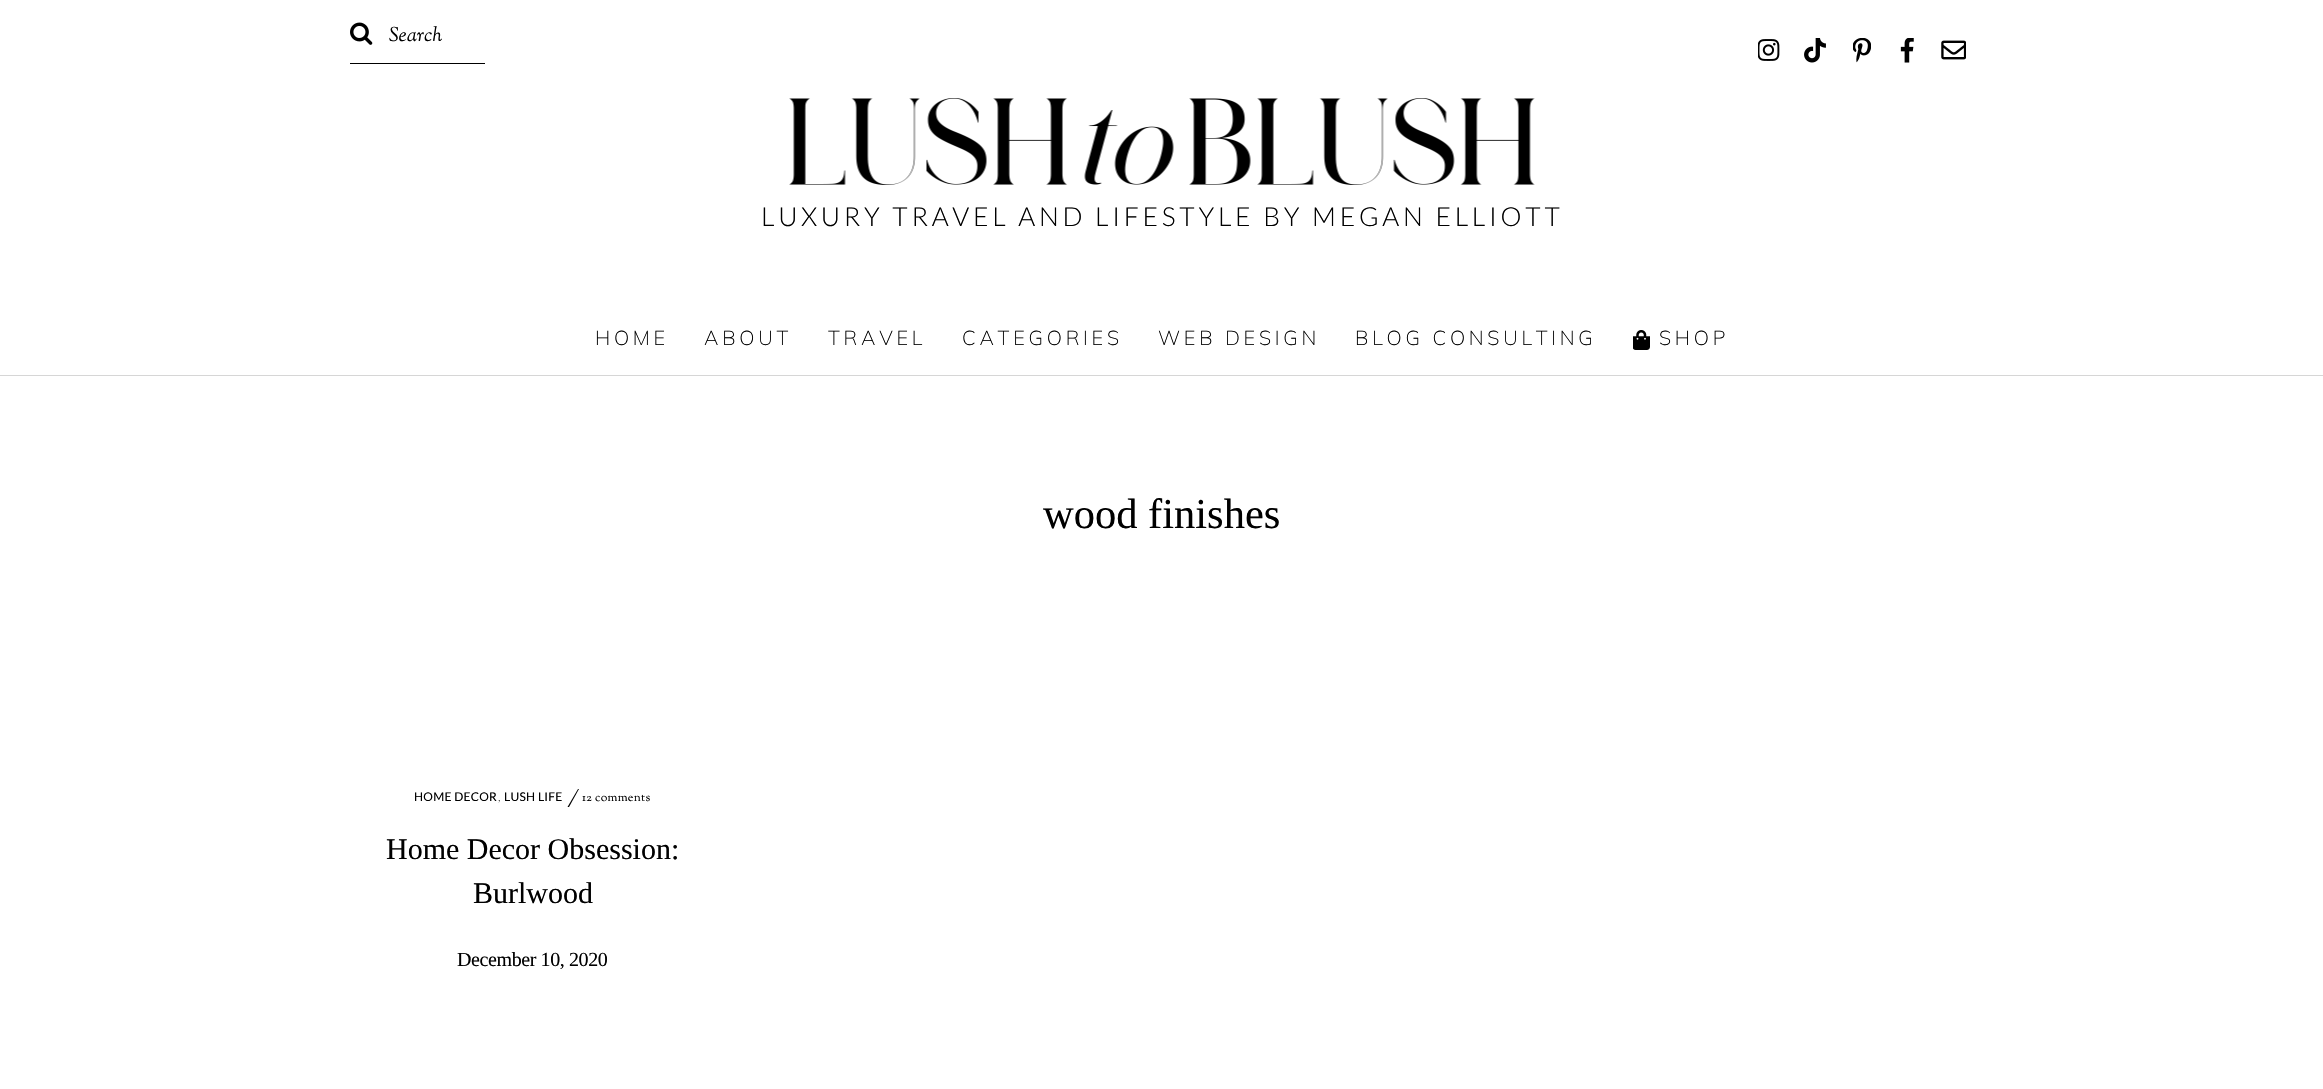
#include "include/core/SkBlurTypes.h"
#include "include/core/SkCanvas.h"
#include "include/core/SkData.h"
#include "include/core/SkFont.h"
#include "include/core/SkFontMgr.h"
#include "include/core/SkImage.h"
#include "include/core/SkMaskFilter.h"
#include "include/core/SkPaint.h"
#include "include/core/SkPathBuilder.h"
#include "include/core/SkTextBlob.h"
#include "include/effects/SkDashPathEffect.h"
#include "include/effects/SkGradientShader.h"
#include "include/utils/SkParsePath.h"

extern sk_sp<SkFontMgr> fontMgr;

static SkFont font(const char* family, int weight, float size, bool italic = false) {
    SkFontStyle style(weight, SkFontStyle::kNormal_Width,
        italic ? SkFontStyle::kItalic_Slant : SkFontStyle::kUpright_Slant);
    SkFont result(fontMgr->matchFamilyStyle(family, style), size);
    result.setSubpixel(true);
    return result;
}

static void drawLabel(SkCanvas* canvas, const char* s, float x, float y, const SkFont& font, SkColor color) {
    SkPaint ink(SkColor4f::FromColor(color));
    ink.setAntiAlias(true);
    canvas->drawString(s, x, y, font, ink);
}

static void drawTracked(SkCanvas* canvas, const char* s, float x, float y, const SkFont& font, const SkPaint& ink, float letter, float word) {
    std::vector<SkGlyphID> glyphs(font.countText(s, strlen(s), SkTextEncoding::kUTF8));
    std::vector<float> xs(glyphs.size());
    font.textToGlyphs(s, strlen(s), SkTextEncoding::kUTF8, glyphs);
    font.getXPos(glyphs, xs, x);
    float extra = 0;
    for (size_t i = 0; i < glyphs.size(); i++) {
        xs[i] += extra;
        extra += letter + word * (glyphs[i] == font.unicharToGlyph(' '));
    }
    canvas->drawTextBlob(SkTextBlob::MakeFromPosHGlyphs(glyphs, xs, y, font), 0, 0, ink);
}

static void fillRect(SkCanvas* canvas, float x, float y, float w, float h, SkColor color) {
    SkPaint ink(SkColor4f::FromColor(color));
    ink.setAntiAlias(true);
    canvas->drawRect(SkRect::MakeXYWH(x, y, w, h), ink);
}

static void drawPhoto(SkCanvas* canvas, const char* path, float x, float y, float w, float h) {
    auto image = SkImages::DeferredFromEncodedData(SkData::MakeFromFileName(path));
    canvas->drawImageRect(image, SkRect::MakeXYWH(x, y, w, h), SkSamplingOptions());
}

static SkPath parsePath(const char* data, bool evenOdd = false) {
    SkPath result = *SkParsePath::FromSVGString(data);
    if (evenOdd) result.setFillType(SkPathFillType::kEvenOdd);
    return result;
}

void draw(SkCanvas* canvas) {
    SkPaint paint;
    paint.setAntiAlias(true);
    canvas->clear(0xFFFFFFFF);
    fillRect(canvas, 0, 375, 2323, 1, 0xFFD6D6D6);
    fillRect(canvas, 350, 63, 135, 1, 0xFF000000);
    drawPhoto(canvas, "assets/img1.png", 350, 22, 23, 23);
    SkFont font1 = font("Sorts Mill Goudy", 400, 20, true);
    drawLabel(canvas, "Search", 389, 41, font1, 0xFF000000);
    drawPhoto(canvas, "assets/img2.png", 1758, 39, 22, 22);
    drawPhoto(canvas, "assets/img3.png", 1804, 38, 22, 25);
    drawPhoto(canvas, "assets/img4.png", 1853, 38, 18, 25);
    drawPhoto(canvas, "assets/img5.png", 1900, 38, 14, 25);
    drawPhoto(canvas, "assets/img6.png", 1941, 40, 25, 20);
    SkFont font2 = font("Muli", 200, 20);
    paint.setColor(0xFF000000);
    drawTracked(canvas, "HOME", 595, 345, font2, paint, 3.75f, 0);
    drawTracked(canvas, "ABOUT", 704, 345, font2, paint, 3.75f, 0);
    drawTracked(canvas, "TRAVEL", 828, 345, font2, paint, 3.75f, 0);
    drawTracked(canvas, "CATEGORIES", 962, 345, font2, paint, 3.75f, 0);
    drawTracked(canvas, "WEB DESIGN", 1158, 345, font2, paint, 3.75f, 0);
    drawTracked(canvas, "BLOG CONSULTING", 1355, 345, font2, paint, 3.75f, 0);
    drawPhoto(canvas, "assets/img7.png", 1633, 330, 17, 20);
    drawTracked(canvas, "SHOP", 1659, 345, font2, paint, 3.75f, 0);
    drawPhoto(canvas, "assets/img8.png", 789, 98, 746, 87);
    SkFont font3 = font("Lato", 300, 26.25f);
    drawTracked(canvas, "LUXURY TRAVEL AND LIFESTYLE BY MEGAN ELLIOTT", 761, 226, font3, paint, 3.75f, 0);
    SkFont font4 = font("Liberation Serif", 400, 42.5f);
    drawLabel(canvas, "wood finishes", 1043, 528, font4, 0xFF000000);
    SkFont font5 = font("Lato", 400, 12);
    drawTracked(canvas, "HOME DECOR", 414, 801, font5, paint, 0.25f, 0);
    SkFont font6 = font("Lato", 300, 12);
    drawTracked(canvas, ",", 498, 801, font6, paint, 0.25f, 0);
    drawTracked(canvas, "LUSH LIFE", 504, 801, font5, paint, 0.25f, 0);
    canvas->drawPath(parsePath("M578 789H579L569 807H567.5Z"), paint);
    SkFont font7 = font("Sorts Mill Goudy", 400, 12);
    drawTracked(canvas, "12 comments", 582, 801, font7, paint, 0.25f, 0);
    SkFont font8 = font("Liberation Serif", 400, 30);
    drawLabel(canvas, "Home Decor Obsession:", 386, 859, font8, 0xFF000000);
    drawLabel(canvas, "Burlwood", 473, 903, font8, 0xFF000000);
    SkFont font9 = font("Liberation Serif", 400, 20);
    drawTracked(canvas, "December 10, 2020", 457, 966, font9, paint, -0.4f, 0);
}
